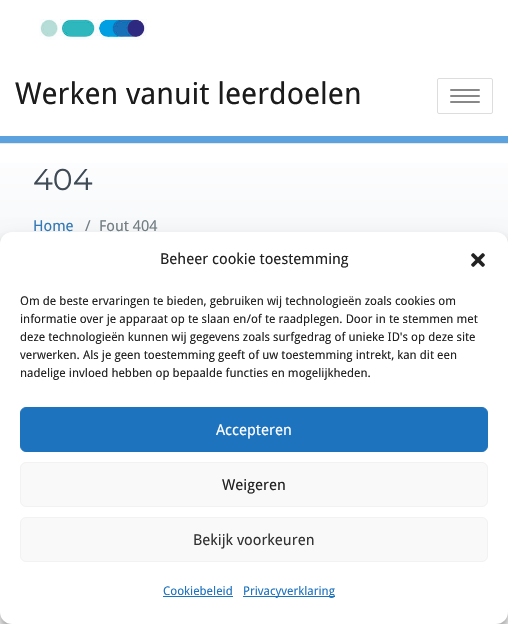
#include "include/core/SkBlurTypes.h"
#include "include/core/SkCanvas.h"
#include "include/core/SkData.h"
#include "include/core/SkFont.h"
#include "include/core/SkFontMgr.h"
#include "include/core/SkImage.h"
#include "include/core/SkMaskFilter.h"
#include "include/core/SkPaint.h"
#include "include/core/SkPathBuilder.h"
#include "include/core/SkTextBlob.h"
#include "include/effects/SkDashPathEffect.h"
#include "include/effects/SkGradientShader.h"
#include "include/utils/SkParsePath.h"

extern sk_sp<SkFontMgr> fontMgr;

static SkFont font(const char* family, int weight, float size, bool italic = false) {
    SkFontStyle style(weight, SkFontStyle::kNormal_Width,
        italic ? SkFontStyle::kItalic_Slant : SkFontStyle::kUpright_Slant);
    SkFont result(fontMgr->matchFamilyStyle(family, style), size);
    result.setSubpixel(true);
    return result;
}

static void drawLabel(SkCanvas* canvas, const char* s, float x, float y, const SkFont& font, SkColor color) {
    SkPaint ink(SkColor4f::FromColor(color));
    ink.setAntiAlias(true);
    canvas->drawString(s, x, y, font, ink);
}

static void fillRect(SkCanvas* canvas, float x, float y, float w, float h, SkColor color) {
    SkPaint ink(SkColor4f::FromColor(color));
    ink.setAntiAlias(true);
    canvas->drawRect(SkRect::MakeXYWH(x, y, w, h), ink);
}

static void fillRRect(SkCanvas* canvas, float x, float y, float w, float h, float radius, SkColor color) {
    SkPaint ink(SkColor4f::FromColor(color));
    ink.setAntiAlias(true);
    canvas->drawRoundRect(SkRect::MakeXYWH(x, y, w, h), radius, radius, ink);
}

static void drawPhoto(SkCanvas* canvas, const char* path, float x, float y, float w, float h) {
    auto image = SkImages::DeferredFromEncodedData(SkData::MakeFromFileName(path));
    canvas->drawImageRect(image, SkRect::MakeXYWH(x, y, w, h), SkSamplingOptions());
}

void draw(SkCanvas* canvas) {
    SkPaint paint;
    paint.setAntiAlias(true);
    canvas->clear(0xFFFFFFFF);
    fillRect(canvas, 0, 136, 508, 7, 0xFF5CA2DF);
    drawPhoto(canvas, "assets/img1.png", 39, 19, 108, 21);
    SkFont font1 = font("Droid Sans", 400, 30);
    drawLabel(canvas, "Werken vanuit leerdoelen", 15, 104, font1, 0xFF1B1B1B);
    paint.setStroke(true);
    paint.setStrokeWidth(1);
    paint.setColor(0xFFDDDDDD);
    canvas->drawRoundRect(SkRect::MakeXYWH(437.5f, 78.5f, 55, 35), 1.5f, 1.5f, paint);
    fillRRect(canvas, 450, 89, 30, 2, 1, 0xFF888888);
    fillRRect(canvas, 450, 95, 30, 2, 1, 0xFF888888);
    fillRRect(canvas, 450, 101, 30, 2, 1, 0xFF888888);
    paint.setStroke(false);
    {
        const SkColor colors[] = {0xFFFEFEFF, 0xFFF4F6F7};
        const float stops[] = {0, 1};
        const SkPoint ends[] = {{254, 144}, {254, 273}};
        paint.setShader(SkGradientShader::MakeLinear(ends, colors, stops, 2, SkTileMode::kClamp));
        paint.setAlpha(255);
    }
    canvas->drawRect(SkRect::MakeXYWH(0, 163, 508, 81), paint);
    fillRect(canvas, 0, 143, 508, 1, 0xFFE4E8EA);
    SkFont font2 = font("Montserrat", 100, 30);
    drawLabel(canvas, "404", 33, 190, font2, 0xFF404B56);
    SkFont font3 = font("Droid Sans", 400, 15);
    drawLabel(canvas, "Home", 33, 231, font3, 0xFF337AB7);
    drawLabel(canvas, "/", 85, 231, font3, 0xFF737F85);
    drawLabel(canvas, "Fout 404", 99, 231, font3, 0xFF737F85);
    paint.setShader(nullptr);
    paint.setColor(0x3B000000);
    paint.setMaskFilter(SkMaskFilter::MakeBlur(kNormal_SkBlurStyle, 3));
    canvas->drawRoundRect(SkRect::MakeXYWH(0, 238, 508, 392), 12, 12, paint);
    paint.setMaskFilter(nullptr);
    paint.setColor(0x30000000);
    paint.setMaskFilter(SkMaskFilter::MakeBlur(kNormal_SkBlurStyle, 10));
    canvas->drawRoundRect(SkRect::MakeXYWH(0, 242, 508, 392), 12, 12, paint);
    paint.setMaskFilter(nullptr);
    fillRRect(canvas, 0, 232, 508, 392, 12, 0xFFFFFFFF);
    drawLabel(canvas, "Beheer cookie toestemming", 160, 264, font3, 0xFF222222);
    drawPhoto(canvas, "assets/img2.png", 471, 253, 14, 14);
    SkFont font4 = font("Droid Sans", 400, 12);
    drawLabel(canvas, "Om de beste ervaringen te bieden, gebruiken wij technologieën zoals cookies om", 20, 305, font4, 0xFF222222);
    drawLabel(canvas, "informatie over je apparaat op te slaan en/of te raadplegen. Door in te stemmen met", 20, 323, font4, 0xFF222222);
    drawLabel(canvas, "deze technologieën kunnen wij gegevens zoals surfgedrag of unieke ID's op deze site", 20, 341, font4, 0xFF222222);
    drawLabel(canvas, "verwerken. Als je geen toestemming geeft of uw toestemming intrekt, kan dit een", 20, 359, font4, 0xFF222222);
    drawLabel(canvas, "nadelige invloed hebben op bepaalde functies en mogelijkheden.", 20, 377, font4, 0xFF222222);
    paint.setColor(0xFF1E73BE);
    canvas->drawRoundRect(SkRect::MakeXYWH(20.5f, 407.5f, 467, 44), 5.5f, 5.5f, paint);
    paint.setStroke(true);
    canvas->drawRoundRect(SkRect::MakeXYWH(20.5f, 407.5f, 467, 44), 5.5f, 5.5f, paint);
    drawLabel(canvas, "Accepteren", 216, 435, font3, 0xFFFFFFFF);
    paint.setStroke(false);
    paint.setColor(0xFFF9F9F9);
    canvas->drawRoundRect(SkRect::MakeXYWH(20.5f, 462.5f, 467, 44), 5.5f, 5.5f, paint);
    paint.setStroke(true);
    paint.setColor(0xFFF2F2F2);
    canvas->drawRoundRect(SkRect::MakeXYWH(20.5f, 462.5f, 467, 44), 5.5f, 5.5f, paint);
    drawLabel(canvas, "Weigeren", 222, 490, font3, 0xFF222222);
    paint.setStroke(false);
    paint.setColor(0xFFF9F9F9);
    canvas->drawRoundRect(SkRect::MakeXYWH(20.5f, 517.5f, 467, 44), 5.5f, 5.5f, paint);
    paint.setStroke(true);
    paint.setColor(0xFFF2F2F2);
    canvas->drawRoundRect(SkRect::MakeXYWH(20.5f, 517.5f, 467, 44), 5.5f, 5.5f, paint);
    drawLabel(canvas, "Bekijk voorkeuren", 193, 545, font3, 0xFF333333);
    drawLabel(canvas, "Cookiebeleid", 163, 595, font4, 0xFF1E73BE);
    fillRect(canvas, 163, 596, 70, 1, 0xFF1E73BE);
    fillRect(canvas, 243, 596, 92, 1, 0xFF1E73BE);
    drawLabel(canvas, "Privacyverklaring", 243, 595, font4, 0xFF1E73BE);
}
